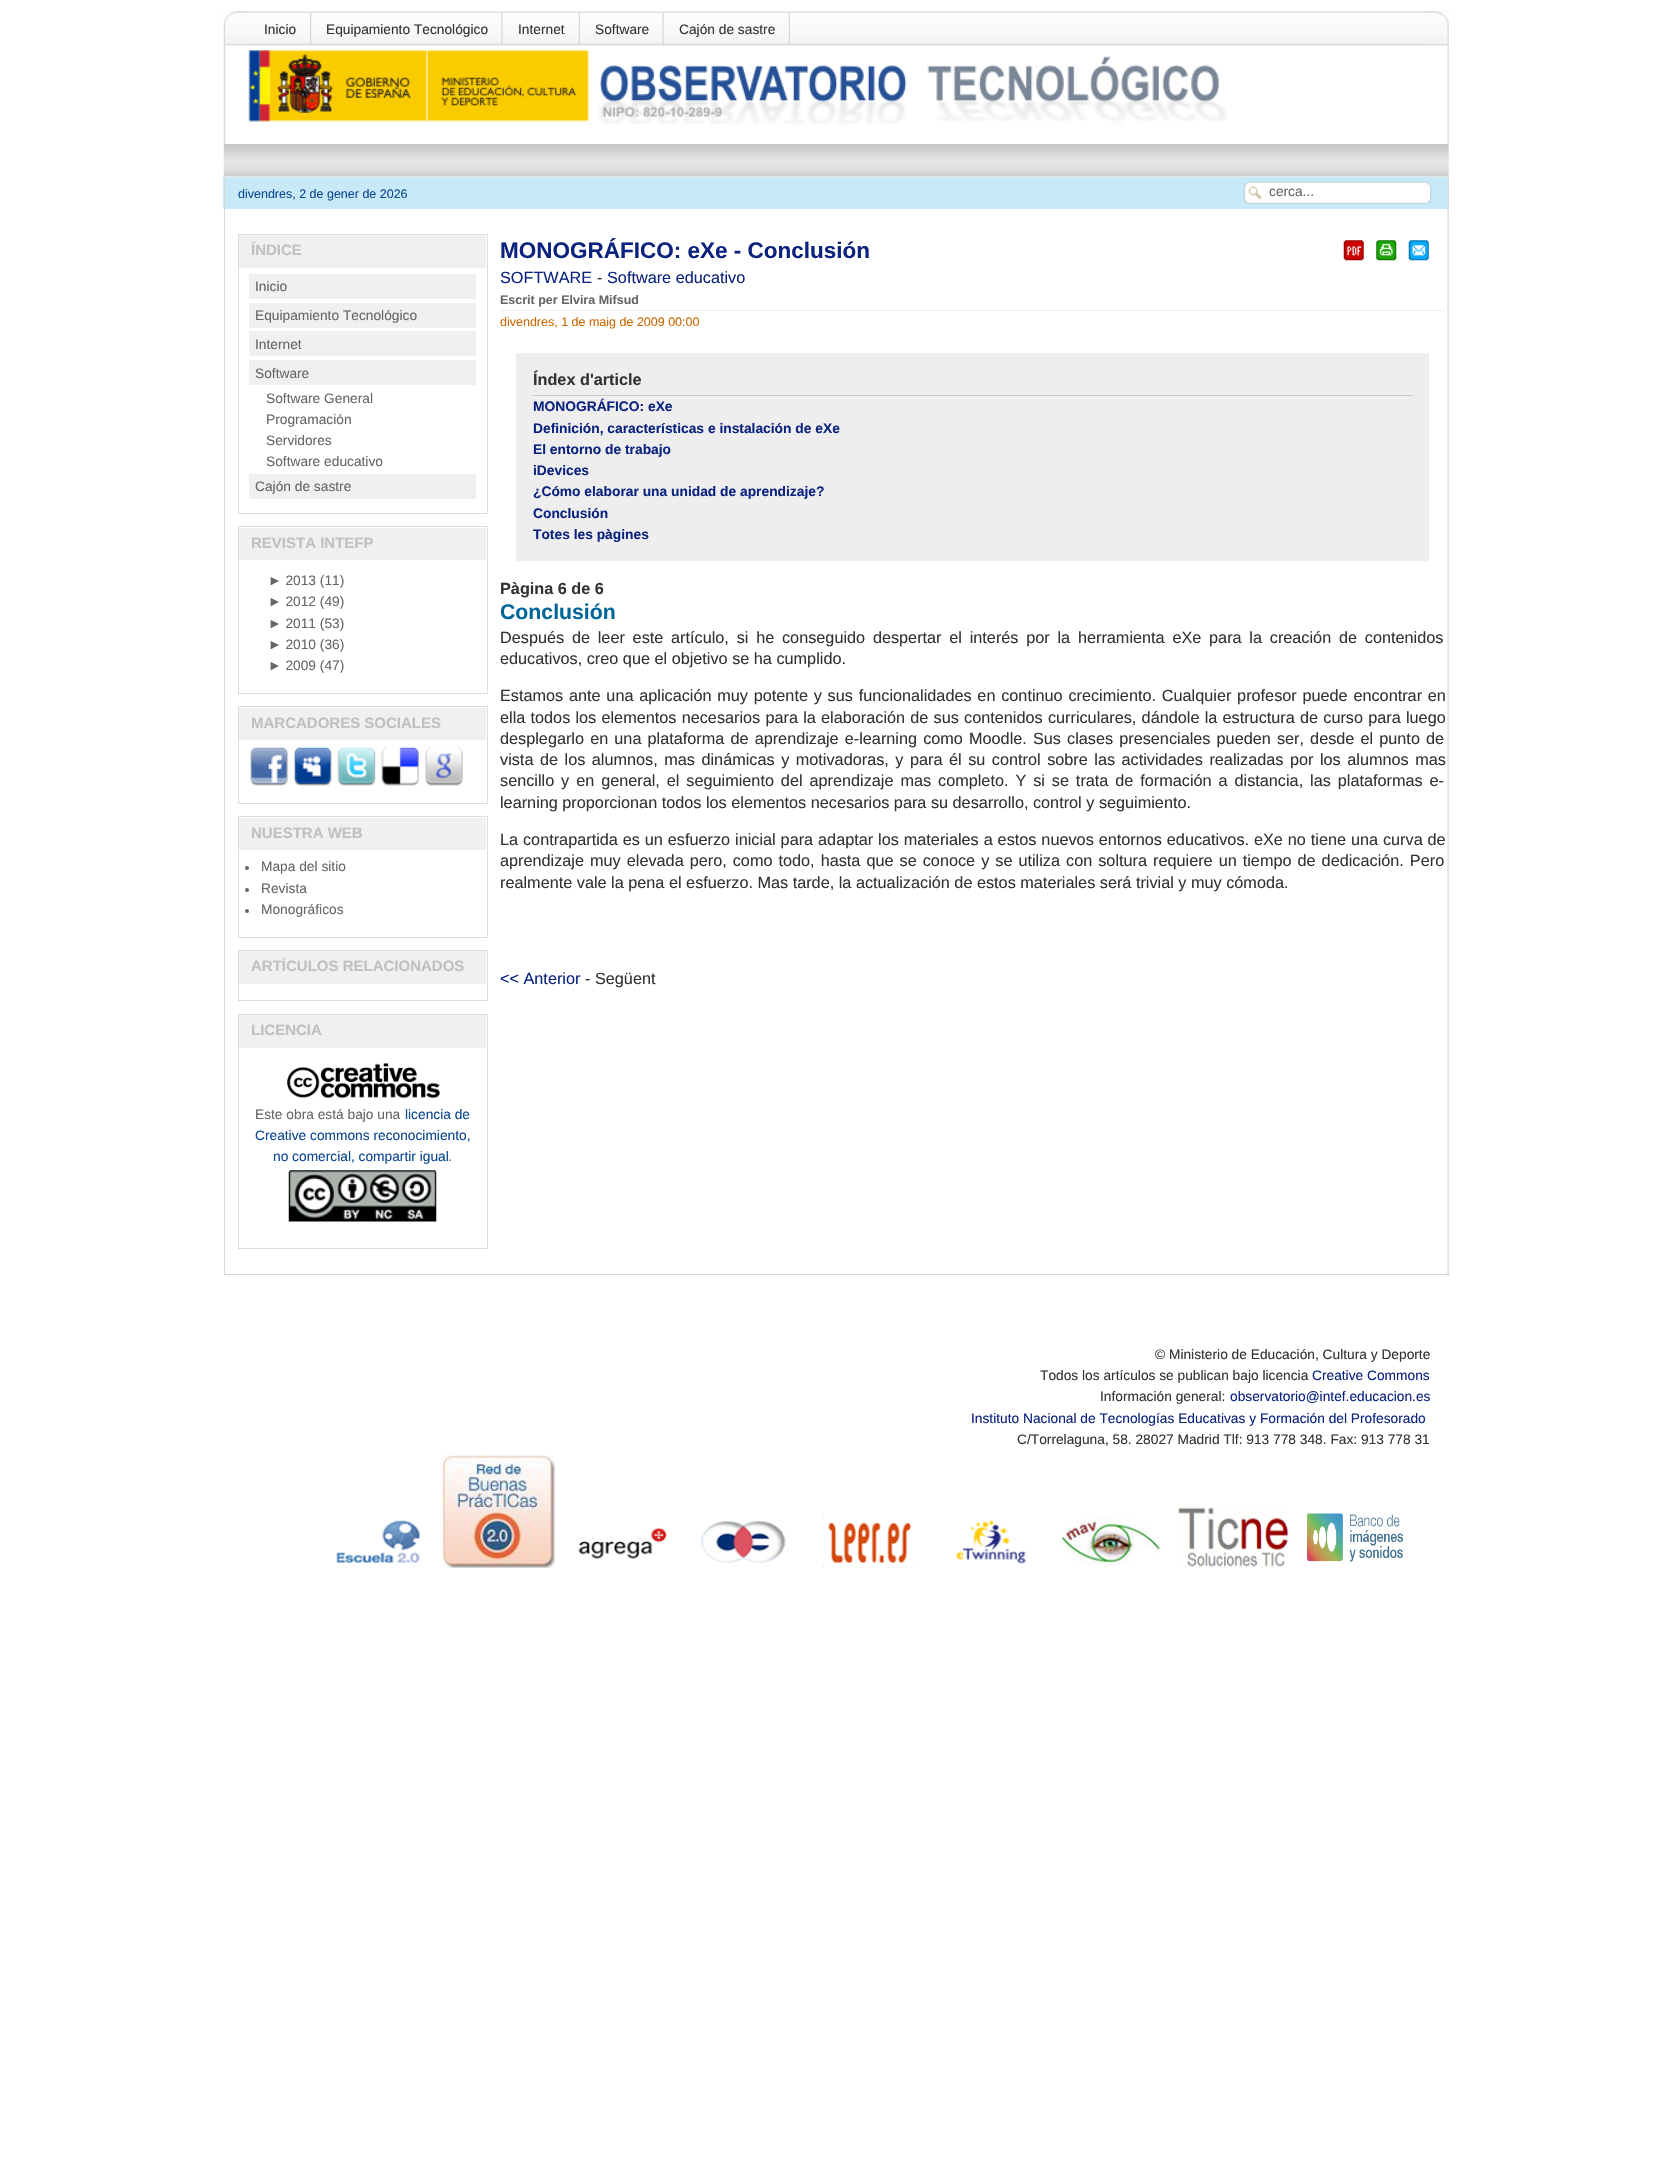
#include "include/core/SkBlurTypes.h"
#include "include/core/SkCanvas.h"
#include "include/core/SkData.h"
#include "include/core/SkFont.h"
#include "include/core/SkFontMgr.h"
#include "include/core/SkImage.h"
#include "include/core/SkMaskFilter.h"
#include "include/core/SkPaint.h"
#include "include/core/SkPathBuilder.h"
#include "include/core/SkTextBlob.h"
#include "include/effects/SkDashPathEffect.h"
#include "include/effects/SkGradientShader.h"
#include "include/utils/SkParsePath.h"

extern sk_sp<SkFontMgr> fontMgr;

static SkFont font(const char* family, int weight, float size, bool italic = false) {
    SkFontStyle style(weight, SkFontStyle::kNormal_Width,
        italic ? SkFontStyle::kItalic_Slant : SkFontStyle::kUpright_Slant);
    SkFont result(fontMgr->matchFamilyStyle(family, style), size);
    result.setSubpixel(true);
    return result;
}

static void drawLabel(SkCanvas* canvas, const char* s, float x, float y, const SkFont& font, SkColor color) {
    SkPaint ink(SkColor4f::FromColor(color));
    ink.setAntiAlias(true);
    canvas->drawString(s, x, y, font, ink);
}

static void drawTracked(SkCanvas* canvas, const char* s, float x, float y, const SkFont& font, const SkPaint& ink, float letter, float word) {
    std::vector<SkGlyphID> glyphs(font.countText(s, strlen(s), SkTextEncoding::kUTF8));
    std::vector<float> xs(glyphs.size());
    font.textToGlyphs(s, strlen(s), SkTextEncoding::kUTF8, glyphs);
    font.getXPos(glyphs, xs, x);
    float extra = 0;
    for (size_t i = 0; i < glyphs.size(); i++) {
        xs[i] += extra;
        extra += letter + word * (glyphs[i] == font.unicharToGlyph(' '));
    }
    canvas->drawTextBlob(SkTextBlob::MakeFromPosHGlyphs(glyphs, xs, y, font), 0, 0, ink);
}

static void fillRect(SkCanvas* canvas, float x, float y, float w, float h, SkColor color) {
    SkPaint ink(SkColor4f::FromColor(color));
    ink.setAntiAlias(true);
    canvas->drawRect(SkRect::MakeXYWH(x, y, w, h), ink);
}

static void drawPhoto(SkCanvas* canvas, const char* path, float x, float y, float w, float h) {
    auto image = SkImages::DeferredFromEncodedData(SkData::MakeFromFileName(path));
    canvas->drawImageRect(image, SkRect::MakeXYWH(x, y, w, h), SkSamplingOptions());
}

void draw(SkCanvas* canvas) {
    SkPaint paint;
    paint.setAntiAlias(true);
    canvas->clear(0xFFFFFFFF);
    drawPhoto(canvas, "assets/img1.png", 223, 11, 1226, 35);
    drawPhoto(canvas, "assets/img2.png", 223, 11, 26, 133);
    drawPhoto(canvas, "assets/img3.png", 310, 13, 2, 33);
    SkFont font1 = font("Liberation Sans", 400, 13.75f);
    drawLabel(canvas, "Inicio", 264, 34, font1, 0xFF333333);
    drawPhoto(canvas, "assets/img4.png", 501, 13, 2, 33);
    drawLabel(canvas, "Equipamiento Tecnológico", 326, 34, font1, 0xFF333333);
    drawPhoto(canvas, "assets/img5.png", 578, 13, 2, 33);
    drawLabel(canvas, "Internet", 518, 34, font1, 0xFF333333);
    drawPhoto(canvas, "assets/img6.png", 662, 13, 2, 33);
    drawLabel(canvas, "Software", 595, 34, font1, 0xFF333333);
    drawPhoto(canvas, "assets/img7.png", 788, 13, 2, 33);
    drawLabel(canvas, "Cajón de sastre", 679, 34, font1, 0xFF333333);
    drawPhoto(canvas, "assets/img8.png", 248, 50, 979, 75);
    drawPhoto(canvas, "assets/img9.png", 1424, 11, 25, 133);
    drawPhoto(canvas, "assets/img10.png", 223, 144, 1226, 33);
    fillRect(canvas, 223, 177, 1226, 32, 0xFFC8E9F8);
    fillRect(canvas, 1448, 178, 1, 31, 0xFFD8D7D7);
    fillRect(canvas, 224, 178, 1, 31, 0xFFD8D7D7);
    SkFont font2 = font("Liberation Sans", 400, 12.5f);
    drawLabel(canvas, "divendres, 2 de gener de 2026", 238, 198, font2, 0xFF0C4790);
    drawPhoto(canvas, "assets/img11.png", 1243, 181, 189, 23);
    drawLabel(canvas, "cerca...", 1269, 196, font1, 0xFF666666);
    drawPhoto(canvas, "assets/img12.png", 1447, 209, 2, 1067);
    fillRect(canvas, 224, 1274, 1226, 1, 0xFFD8D7D7);
    fillRect(canvas, 224, 209, 1, 1066, 0xFFD8D7D7);
    paint.setStroke(true);
    paint.setStrokeWidth(1);
    paint.setColor(0xFFDCDDDE);
    canvas->drawRect(SkRect::MakeXYWH(238.5f, 234.5f, 249, 279), paint);
    fillRect(canvas, 239, 235, 247, 33, 0xFFF0F0F0);
    SkFont font3 = font("Liberation Sans", 700, 15);
    drawLabel(canvas, "ÍNDICE", 251, 255, font3, 0xFFC0C0C0);
    fillRect(canvas, 249, 274, 227, 25, 0xFFF0F0F0);
    drawLabel(canvas, "Inicio", 255, 291, font1, 0xFF666666);
    fillRect(canvas, 249, 303, 227, 25, 0xFFF0F0F0);
    drawLabel(canvas, "Equipamiento Tecnológico", 255, 320, font1, 0xFF666666);
    fillRect(canvas, 249, 331, 227, 25, 0xFFF0F0F0);
    drawLabel(canvas, "Internet", 255, 349, font1, 0xFF666666);
    fillRect(canvas, 249, 360, 227, 25, 0xFFF0F0F0);
    drawLabel(canvas, "Software", 255, 378, font1, 0xFF666666);
    drawLabel(canvas, "Software General", 266, 403, font1, 0xFF666666);
    drawLabel(canvas, "Programación", 266, 424, font1, 0xFF666666);
    drawLabel(canvas, "Servidores", 266, 445, font1, 0xFF666666);
    drawLabel(canvas, "Software educativo", 266, 466, font1, 0xFF666666);
    fillRect(canvas, 249, 474, 227, 25, 0xFFF0F0F0);
    drawLabel(canvas, "Cajón de sastre", 255, 491, font1, 0xFF666666);
    canvas->drawRect(SkRect::MakeXYWH(238.5f, 526.5f, 249, 167), paint);
    fillRect(canvas, 239, 528, 247, 32, 0xFFF0F0F0);
    drawLabel(canvas, "REVISTA INTEFP", 251, 548, font3, 0xFFC0C0C0);
    drawLabel(canvas, "► 2013 (11)", 268, 585, font1, 0xFF666666);
    drawLabel(canvas, "► 2012 (49)", 268, 606, font1, 0xFF666666);
    drawLabel(canvas, "► 2011 (53)", 268, 628, font1, 0xFF666666);
    drawLabel(canvas, "► 2010 (36)", 268, 649, font1, 0xFF666666);
    drawLabel(canvas, "► 2009 (47)", 268, 670, font1, 0xFF666666);
    canvas->drawRect(SkRect::MakeXYWH(238.5f, 706.5f, 249, 97), paint);
    fillRect(canvas, 239, 708, 247, 32, 0xFFF0F0F0);
    drawLabel(canvas, "MARCADORES SOCIALES", 251, 728, font3, 0xFFC0C0C0);
    drawPhoto(canvas, "assets/img13.png", 250, 747, 38, 39);
    drawPhoto(canvas, "assets/img14.png", 293, 747, 39, 39);
    drawPhoto(canvas, "assets/img15.png", 337, 747, 39, 39);
    drawPhoto(canvas, "assets/img16.png", 381, 747, 38, 39);
    drawPhoto(canvas, "assets/img17.png", 425, 747, 38, 39);
    canvas->drawRect(SkRect::MakeXYWH(238.5f, 816.5f, 249, 121), paint);
    fillRect(canvas, 239, 818, 247, 32, 0xFFF0F0F0);
    drawLabel(canvas, "NUESTRA WEB", 251, 838, font3, 0xFFC0C0C0);
    paint.setStroke(false);
    paint.setColor(0xFF666666);
    canvas->drawCircle(247, 868, 2, paint);
    drawLabel(canvas, "Mapa del sitio", 261, 871, font1, 0xFF666666);
    canvas->drawCircle(247, 890, 2, paint);
    drawLabel(canvas, "Revista", 261, 893, font1, 0xFF666666);
    canvas->drawCircle(247, 911, 2, paint);
    drawLabel(canvas, "Monográficos", 261, 914, font1, 0xFF666666);
    paint.setStroke(true);
    paint.setColor(0xFFDCDDDE);
    canvas->drawRect(SkRect::MakeXYWH(238.5f, 950.5f, 249, 50), paint);
    fillRect(canvas, 239, 951, 247, 33, 0xFFF0F0F0);
    drawLabel(canvas, "ARTÍCULOS RELACIONADOS", 251, 971, font3, 0xFFC0C0C0);
    canvas->drawRect(SkRect::MakeXYWH(238.5f, 1014.5f, 249, 234), paint);
    fillRect(canvas, 239, 1015, 247, 33, 0xFFF0F0F0);
    drawLabel(canvas, "LICENCIA", 251, 1035, font3, 0xFFC0C0C0);
    drawPhoto(canvas, "assets/img18.png", 287, 1063, 153, 36);
    drawLabel(canvas, "Este obra está bajo una", 255, 1119, font1, 0xFF666666);
    drawLabel(canvas, "licencia de", 405, 1119, font1, 0xFF0C4790);
    drawLabel(canvas, "Creative commons reconocimiento,", 255, 1140, font1, 0xFF0C4790);
    drawLabel(canvas, "no comercial, compartir igual", 273, 1161, font1, 0xFF0C4790);
    drawLabel(canvas, ".", 448, 1161, font1, 0xFF666666);
    drawPhoto(canvas, "assets/img19.png", 288, 1170, 149, 52);
    SkFont font4 = font("Liberation Sans", 700, 22.5f);
    drawLabel(canvas, "MONOGRÁFICO: eXe - Conclusión", 500, 258, font4, 0xFF0B237E);
    drawPhoto(canvas, "assets/img20.png", 1343, 240, 21, 21);
    drawPhoto(canvas, "assets/img21.png", 1376, 240, 21, 21);
    drawPhoto(canvas, "assets/img22.png", 1408, 240, 21, 21);
    SkFont font5 = font("Liberation Sans", 400, 16.25f);
    drawLabel(canvas, "SOFTWARE", 500, 283, font5, 0xFF0B237E);
    drawLabel(canvas, "-", 597, 283, font5, 0xFF333333);
    drawLabel(canvas, "Software educativo", 607, 283, font5, 0xFF0B237E);
    SkFont font6 = font("Liberation Sans", 700, 12.5f);
    drawLabel(canvas, "Escrit per Elvira Mifsud", 500, 304, font6, 0xFF666666);
    fillRect(canvas, 500, 310, 945, 1, 0xFFE7F6E3);
    drawLabel(canvas, "divendres, 1 de maig de 2009 00:00", 500, 326, font2, 0xFFCC6600);
    fillRect(canvas, 516, 353, 913, 208, 0xFFEEEEEE);
    fillRect(canvas, 533, 395, 880, 1, 0xFFCCCCCC);
    SkFont font7 = font("Liberation Sans", 700, 16.25f);
    drawLabel(canvas, "Índex d'article", 533, 385, font7, 0xFF333333);
    SkFont font8 = font("Liberation Sans", 700, 13.8f);
    drawLabel(canvas, "MONOGRÁFICO: eXe", 533, 411, font8, 0xFF0B237E);
    drawLabel(canvas, "Definición, características e instalación de eXe", 533, 433, font8, 0xFF0B237E);
    drawLabel(canvas, "El entorno de trabajo", 533, 454, font8, 0xFF0B237E);
    drawLabel(canvas, "iDevices", 533, 475, font8, 0xFF0B237E);
    drawLabel(canvas, "¿Cómo elaborar una unidad de aprendizaje?", 533, 496, font8, 0xFF0B237E);
    drawLabel(canvas, "Conclusión", 533, 518, font8, 0xFF0B237E);
    drawLabel(canvas, "Totes les pàgines", 533, 539, font8, 0xFF0B237E);
    drawLabel(canvas, "Pàgina 6 de 6", 500, 594, font7, 0xFF333333);
    SkFont font9 = font("Liberation Sans", 700, 21.25f);
    drawLabel(canvas, "Conclusión", 500, 619, font9, 0xFF006699);
    paint.setStroke(false);
    paint.setColor(0xFF333333);
    drawTracked(canvas, "Después de leer este artículo, si he conseguido despertar el interés por la herramienta eXe para la creación de contenidos", 500, 643, font5, paint, 0, 3.25f);
    drawLabel(canvas, "educativos, creo que el objetivo se ha cumplido.", 500, 664, font5, 0xFF333333);
    drawTracked(canvas, "Estamos ante una aplicación muy potente y sus funcionalidades en continuo crecimiento. Cualquier profesor puede encontrar en", 500, 701, font5, paint, 0, 1.25f);
    drawTracked(canvas, "ella todos los elementos necesarios para la elaboración de sus contenidos curriculares, dándole la estructura de curso para luego", 500, 723, font5, paint, 0, 0.7f);
    drawTracked(canvas, "desplegarlo en una plataforma de aprendizaje e-learning como Moodle. Sus clases presenciales pueden ser, desde el punto de", 500, 744, font5, paint, 0, 1.6f);
    drawTracked(canvas, "vista de los alumnos, mas dinámicas y motivadoras, y para él su control sobre las actividades realizadas por los alumnos mas", 500, 765, font5, paint, 0, 2);
    drawTracked(canvas, "sencillo y en general, el seguimiento del aprendizaje mas completo. Y si se trata de formación a distancia, las plataformas e-", 500, 786, font5, paint, 0, 2.4f);
    drawLabel(canvas, "learning proporcionan todos los elementos necesarios para su desarrollo, control y seguimiento.", 500, 808, font5, 0xFF333333);
    drawTracked(canvas, "La contrapartida es un esfuerzo inicial para adaptar los materiales a estos nuevos entornos educativos. eXe no tiene una curva de", 500, 845, font5, paint, 0, 0.4f);
    drawTracked(canvas, "aprendizaje muy elevada pero, como todo, hasta que se conoce y se utiliza con soltura requiere un tiempo de dedicación. Pero", 500, 866, font5, paint, 0, 1.5f);
    drawLabel(canvas, "realmente vale la pena el esfuerzo. Mas tarde, la actualización de estos materiales será trivial y muy cómoda.", 500, 888, font5, 0xFF333333);
    drawLabel(canvas, "<< Anterior", 500, 984, font5, 0xFF0B237E);
    drawLabel(canvas, "- Següent", 585, 984, font5, 0xFF333333);
    drawLabel(canvas, "© Ministerio de Educación, Cultura y Deporte", 1155, 1359, font1, 0xFF333333);
    drawLabel(canvas, "Todos los artículos se publican bajo licencia", 1040, 1380, font1, 0xFF333333);
    drawLabel(canvas, "Creative Commons", 1312, 1380, font1, 0xFF0B237E);
    drawLabel(canvas, "Información general:", 1100, 1401, font1, 0xFF333333);
    drawLabel(canvas, "observatorio@intef.educacion.es", 1230, 1401, font1, 0xFF0B237E);
    drawLabel(canvas, "Instituto Nacional de Tecnologías Educativas y Formación del Profesorado", 971, 1423, font1, 0xFF0B237E);
    drawLabel(canvas, "C/Torrelaguna, 58. 28027 Madrid Tlf: 913 778 348. Fax: 913 778 31", 1017, 1444, font1, 0xFF333333);
    drawPhoto(canvas, "assets/img23.png", 336, 1520, 85, 43);
    drawPhoto(canvas, "assets/img24.png", 442, 1455, 113, 113);
    drawPhoto(canvas, "assets/img25.png", 578, 1527, 90, 32);
    drawPhoto(canvas, "assets/img26.png", 701, 1520, 85, 43);
    drawPhoto(canvas, "assets/img27.png", 822, 1515, 93, 53);
    drawPhoto(canvas, "assets/img28.png", 955, 1520, 72, 44);
    drawPhoto(canvas, "assets/img29.png", 1062, 1518, 99, 48);
    drawPhoto(canvas, "assets/img30.png", 1178, 1507, 111, 61);
    drawPhoto(canvas, "assets/img31.png", 1307, 1513, 97, 49);
}
